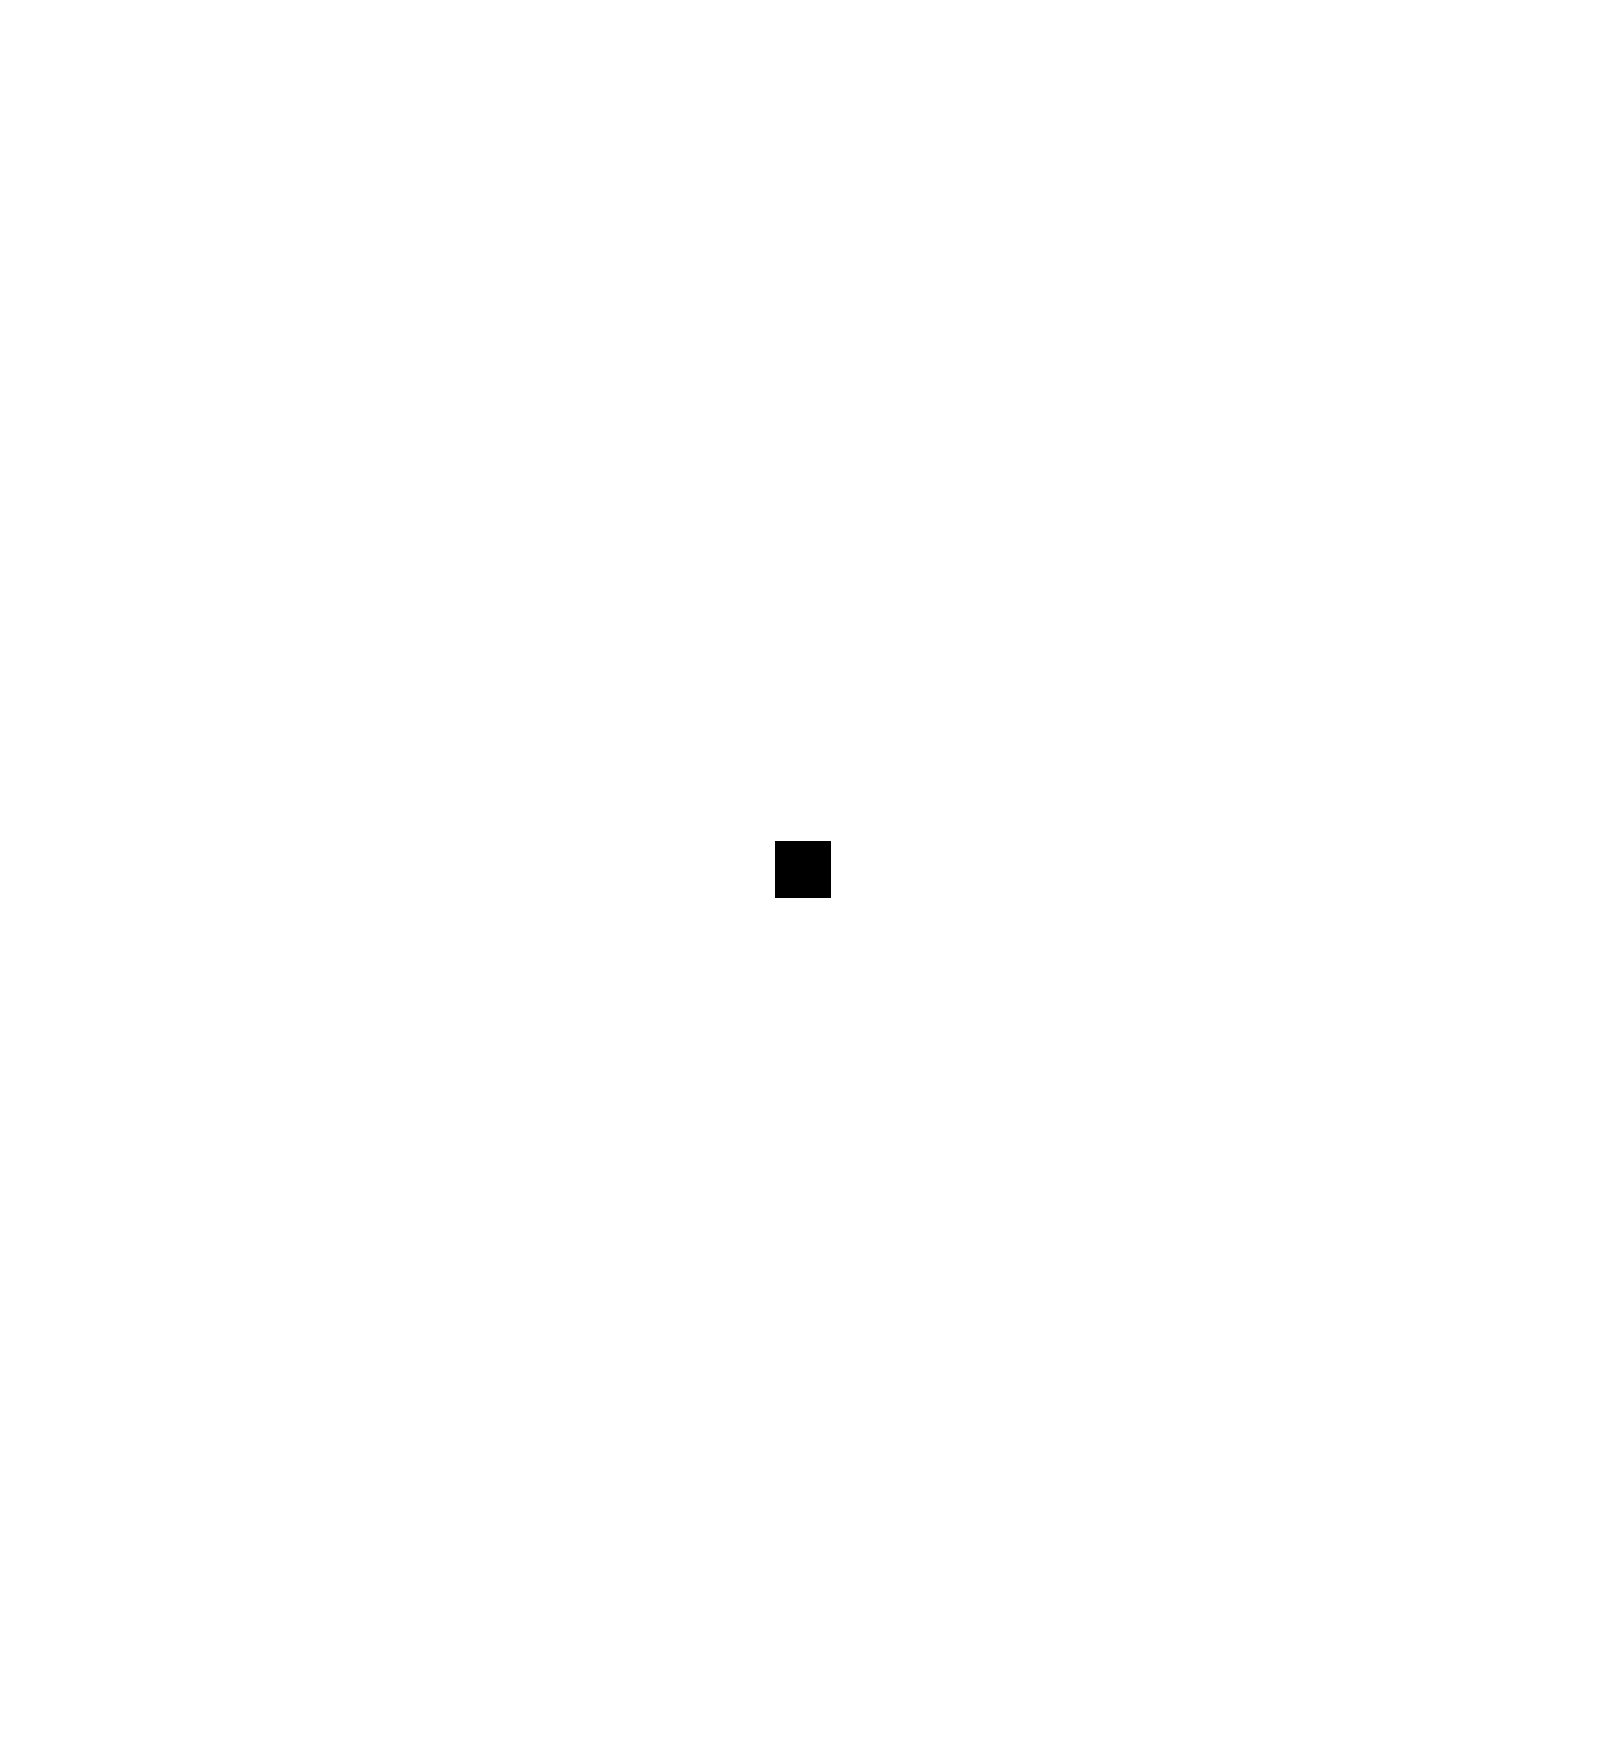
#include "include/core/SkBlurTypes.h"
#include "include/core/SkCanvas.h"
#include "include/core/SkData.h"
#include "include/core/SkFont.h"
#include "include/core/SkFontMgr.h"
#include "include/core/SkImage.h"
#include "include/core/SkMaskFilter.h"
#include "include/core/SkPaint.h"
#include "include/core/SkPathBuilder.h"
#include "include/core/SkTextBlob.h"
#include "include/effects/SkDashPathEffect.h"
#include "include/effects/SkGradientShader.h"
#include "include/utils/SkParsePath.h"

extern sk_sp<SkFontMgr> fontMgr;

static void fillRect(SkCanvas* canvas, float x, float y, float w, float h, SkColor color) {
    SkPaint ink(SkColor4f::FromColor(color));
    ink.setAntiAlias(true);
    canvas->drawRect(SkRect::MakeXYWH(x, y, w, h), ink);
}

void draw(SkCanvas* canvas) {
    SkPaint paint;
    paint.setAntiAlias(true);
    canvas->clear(0xFFFFFFFF);
    fillRect(canvas, 775, 841, 56, 57, 0xFF000000);
}
